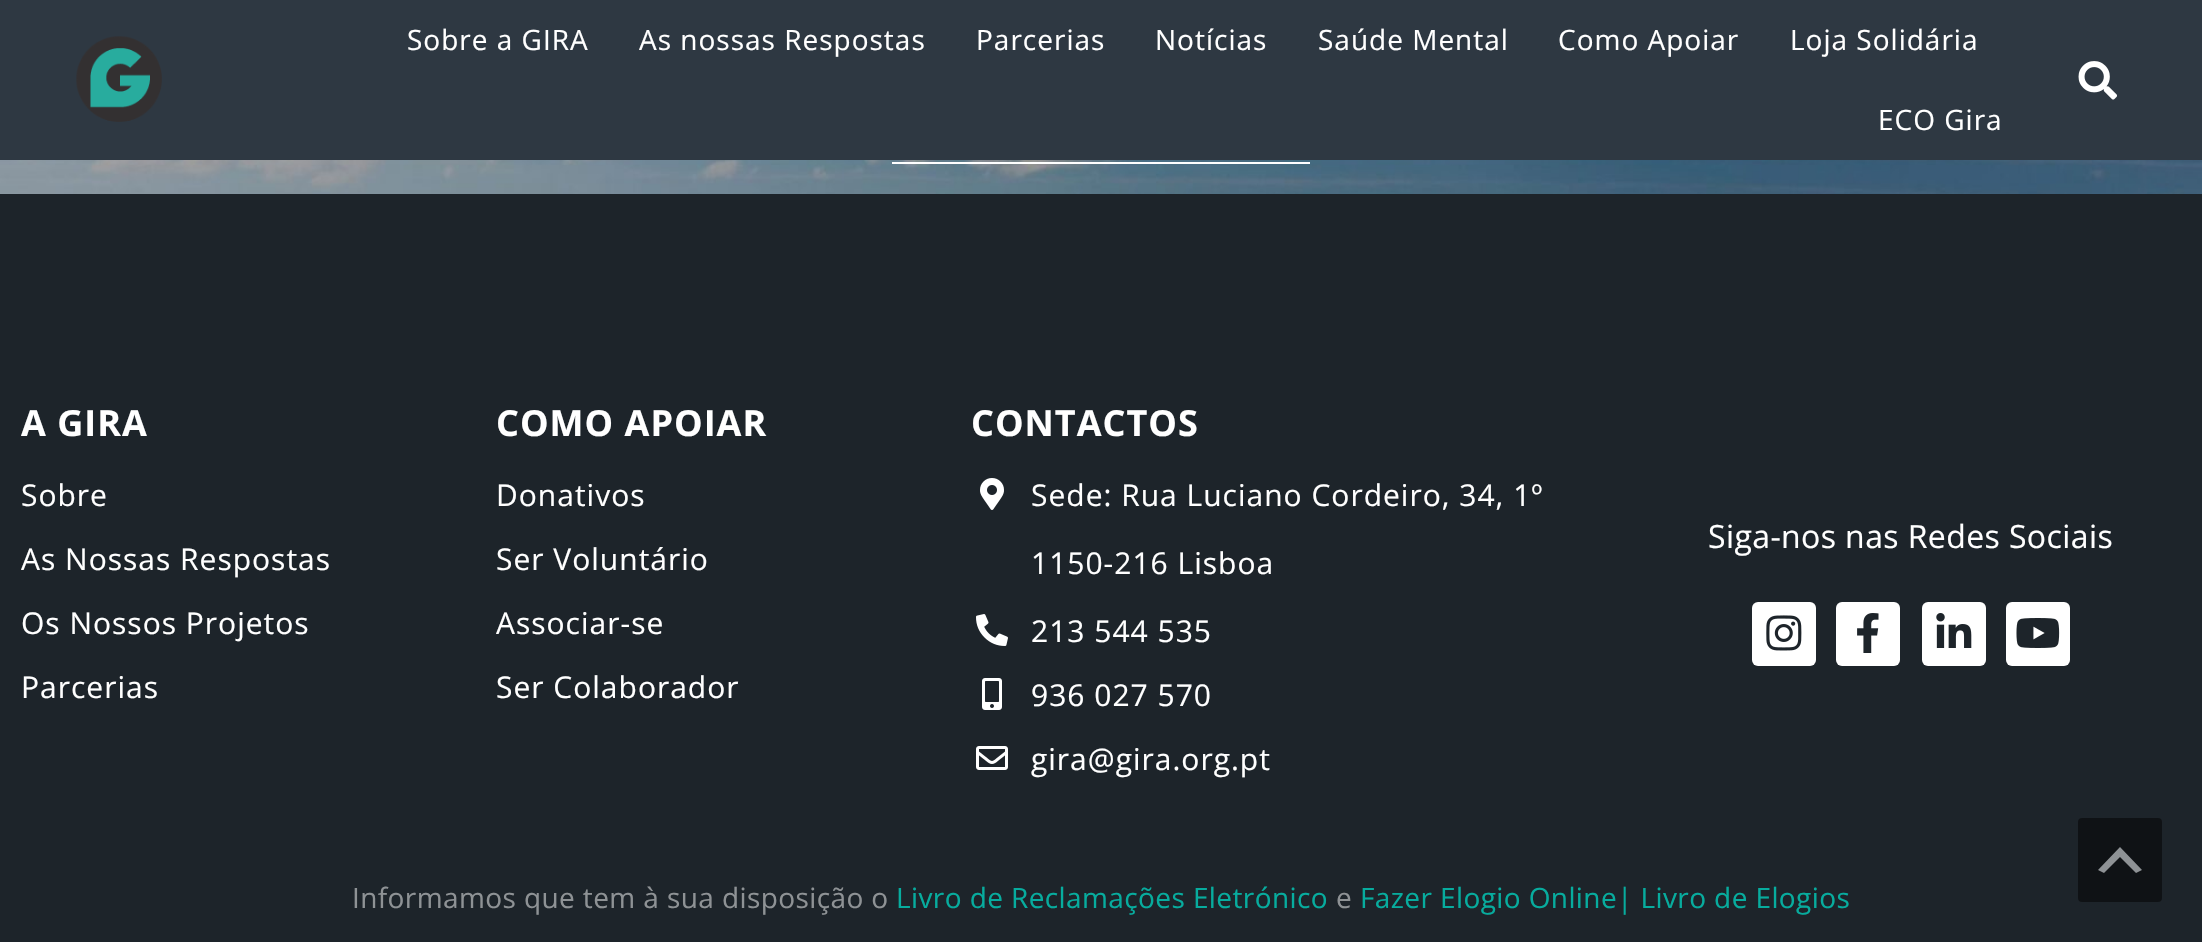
#include "include/core/SkBlurTypes.h"
#include "include/core/SkCanvas.h"
#include "include/core/SkData.h"
#include "include/core/SkFont.h"
#include "include/core/SkFontMgr.h"
#include "include/core/SkImage.h"
#include "include/core/SkMaskFilter.h"
#include "include/core/SkPaint.h"
#include "include/core/SkPathBuilder.h"
#include "include/core/SkTextBlob.h"
#include "include/effects/SkDashPathEffect.h"
#include "include/effects/SkGradientShader.h"
#include "include/utils/SkParsePath.h"

extern sk_sp<SkFontMgr> fontMgr;

static SkFont font(const char* family, int weight, float size, bool italic = false) {
    SkFontStyle style(weight, SkFontStyle::kNormal_Width,
        italic ? SkFontStyle::kItalic_Slant : SkFontStyle::kUpright_Slant);
    SkFont result(fontMgr->matchFamilyStyle(family, style), size);
    result.setSubpixel(true);
    return result;
}

static void drawTracked(SkCanvas* canvas, const char* s, float x, float y, const SkFont& font, const SkPaint& ink, float letter, float word) {
    std::vector<SkGlyphID> glyphs(font.countText(s, strlen(s), SkTextEncoding::kUTF8));
    std::vector<float> xs(glyphs.size());
    font.textToGlyphs(s, strlen(s), SkTextEncoding::kUTF8, glyphs);
    font.getXPos(glyphs, xs, x);
    float extra = 0;
    for (size_t i = 0; i < glyphs.size(); i++) {
        xs[i] += extra;
        extra += letter + word * (glyphs[i] == font.unicharToGlyph(' '));
    }
    canvas->drawTextBlob(SkTextBlob::MakeFromPosHGlyphs(glyphs, xs, y, font), 0, 0, ink);
}

static void fillRect(SkCanvas* canvas, float x, float y, float w, float h, SkColor color) {
    SkPaint ink(SkColor4f::FromColor(color));
    ink.setAntiAlias(true);
    canvas->drawRect(SkRect::MakeXYWH(x, y, w, h), ink);
}

static void fillRRect(SkCanvas* canvas, float x, float y, float w, float h, float radius, SkColor color) {
    SkPaint ink(SkColor4f::FromColor(color));
    ink.setAntiAlias(true);
    canvas->drawRoundRect(SkRect::MakeXYWH(x, y, w, h), radius, radius, ink);
}

static void drawPhoto(SkCanvas* canvas, const char* path, float x, float y, float w, float h) {
    auto image = SkImages::DeferredFromEncodedData(SkData::MakeFromFileName(path));
    canvas->drawImageRect(image, SkRect::MakeXYWH(x, y, w, h), SkSamplingOptions());
}

static SkPath parsePath(const char* data, bool evenOdd = false) {
    SkPath result = *SkParsePath::FromSVGString(data);
    if (evenOdd) result.setFillType(SkPathFillType::kEvenOdd);
    return result;
}

void draw(SkCanvas* canvas) {
    SkPaint paint;
    paint.setAntiAlias(true);
    canvas->clear(0xFFFFFFFF);
    fillRect(canvas, 0, 0, 2202, 160, 0xFF2E3842);
    drawPhoto(canvas, "assets/img1.png", 76, 36, 86, 86);
    SkFont font1 = font("Open Sans", 400, 28);
    paint.setColor(0xFFFFFFFF);
    drawTracked(canvas, "Sobre a GIRA", 407, 50, font1, paint, 1, 0);
    drawTracked(canvas, "As nossas Respostas", 639, 50, font1, paint, 1, 0);
    drawTracked(canvas, "Parcerias", 976, 50, font1, paint, 1, 0);
    drawTracked(canvas, "Notícias", 1155, 50, font1, paint, 1, 0);
    drawTracked(canvas, "Saúde Mental", 1318, 50, font1, paint, 1, 0);
    drawTracked(canvas, "Como Apoiar", 1558, 50, font1, paint, 1, 0);
    drawTracked(canvas, "Loja Solidária", 1790, 50, font1, paint, 1, 0);
    drawTracked(canvas, "ECO Gira", 1878, 130, font1, paint, 1, 0);
    drawPhoto(canvas, "assets/img2.png", 2078, 61, 39, 39);
    drawPhoto(canvas, "assets/img3.png", 0, 160, 2202, 34);
    fillRect(canvas, 892, 162, 418, 2, 0xFFFFFFFF);
    fillRect(canvas, 0, 194, 2202, 748, 0xFF1D242A);
    SkFont font2 = font("Open Sans", 700, 36);
    drawTracked(canvas, "A GIRA", 21, 436, font2, paint, 1, 0);
    SkFont font3 = font("Open Sans", 400, 30);
    drawTracked(canvas, "Sobre", 21, 506, font3, paint, 1, 0);
    drawTracked(canvas, "As Nossas Respostas", 21, 570, font3, paint, 1, 0);
    drawTracked(canvas, "Os Nossos Projetos", 21, 634, font3, paint, 1, 0);
    drawTracked(canvas, "Parcerias", 21, 698, font3, paint, 1, 0);
    drawTracked(canvas, "COMO APOIAR", 496, 436, font2, paint, 1, 0);
    drawTracked(canvas, "Donativos", 496, 506, font3, paint, 1, 0);
    drawTracked(canvas, "Ser Voluntário", 496, 570, font3, paint, 1, 0);
    drawTracked(canvas, "Associar-se", 496, 634, font3, paint, 1, 0);
    drawTracked(canvas, "Ser Colaborador", 496, 698, font3, paint, 1, 0);
    drawTracked(canvas, "CONTACTOS", 971, 436, font2, paint, 1, 0);
    drawPhoto(canvas, "assets/img4.png", 980, 478, 24, 32);
    drawTracked(canvas, "Sede: Rua Luciano Cordeiro, 34, 1º", 1031, 506, font3, paint, 1, 0);
    drawTracked(canvas, "1150-216 Lisboa", 1031, 574, font3, paint, 1, 0);
    drawPhoto(canvas, "assets/img5.png", 976, 614, 32, 32);
    drawTracked(canvas, "213 544 535", 1031, 642, font3, paint, 1, 0);
    drawPhoto(canvas, "assets/img6.png", 982, 678, 20, 32);
    drawTracked(canvas, "936 027 570", 1031, 706, font3, paint, 1, 0);
    drawPhoto(canvas, "assets/img7.png", 976, 746, 32, 24);
    drawTracked(canvas, "gira@gira.org.pt", 1031, 770, font3, paint, 1, 0);
    SkFont font4 = font("Open Sans", 400, 32);
    drawTracked(canvas, "Siga-nos nas Redes Sociais", 1708, 548, font4, paint, 0.4f, 0);
    fillRRect(canvas, 1752, 602, 64, 64, 6, 0xFFFFFFFF);
    drawPhoto(canvas, "assets/img8.png", 1766, 615, 36, 36);
    fillRRect(canvas, 1836, 602, 64, 64, 6, 0xFFFFFFFF);
    drawPhoto(canvas, "assets/img9.png", 1857, 613, 22, 40);
    fillRRect(canvas, 1922, 602, 64, 64, 6, 0xFFFFFFFF);
    drawPhoto(canvas, "assets/img10.png", 1936, 613, 36, 35);
    fillRRect(canvas, 2006, 602, 64, 64, 6, 0xFFFFFFFF);
    drawPhoto(canvas, "assets/img11.png", 2016, 618, 44, 30);
    paint.setColor(0xFF8E9295);
    drawTracked(canvas, "Informamos que tem à sua disposição o", 352, 908, font1, paint, 0.4f, 0);
    paint.setColor(0xFF07AC9E);
    drawTracked(canvas, "Livro de Reclamações Eletrónico", 896, 908, font1, paint, 0.4f, 0);
    paint.setColor(0xFF8E9295);
    drawTracked(canvas, "e", 1336, 908, font1, paint, 0.4f, 0);
    paint.setColor(0xFF07AC9E);
    drawTracked(canvas, "Fazer Elogio Online| Livro de Elogios", 1360, 908, font1, paint, 0.4f, 0);
    fillRRect(canvas, 2078, 818, 84, 84, 4, 0xFF0F1215);
    paint.setColor(0xFF8E9295);
    canvas->drawPath(parsePath("M2136 873L2120 857L2104 873L2098 870L2120 847L2142 870Z"), paint);
}
